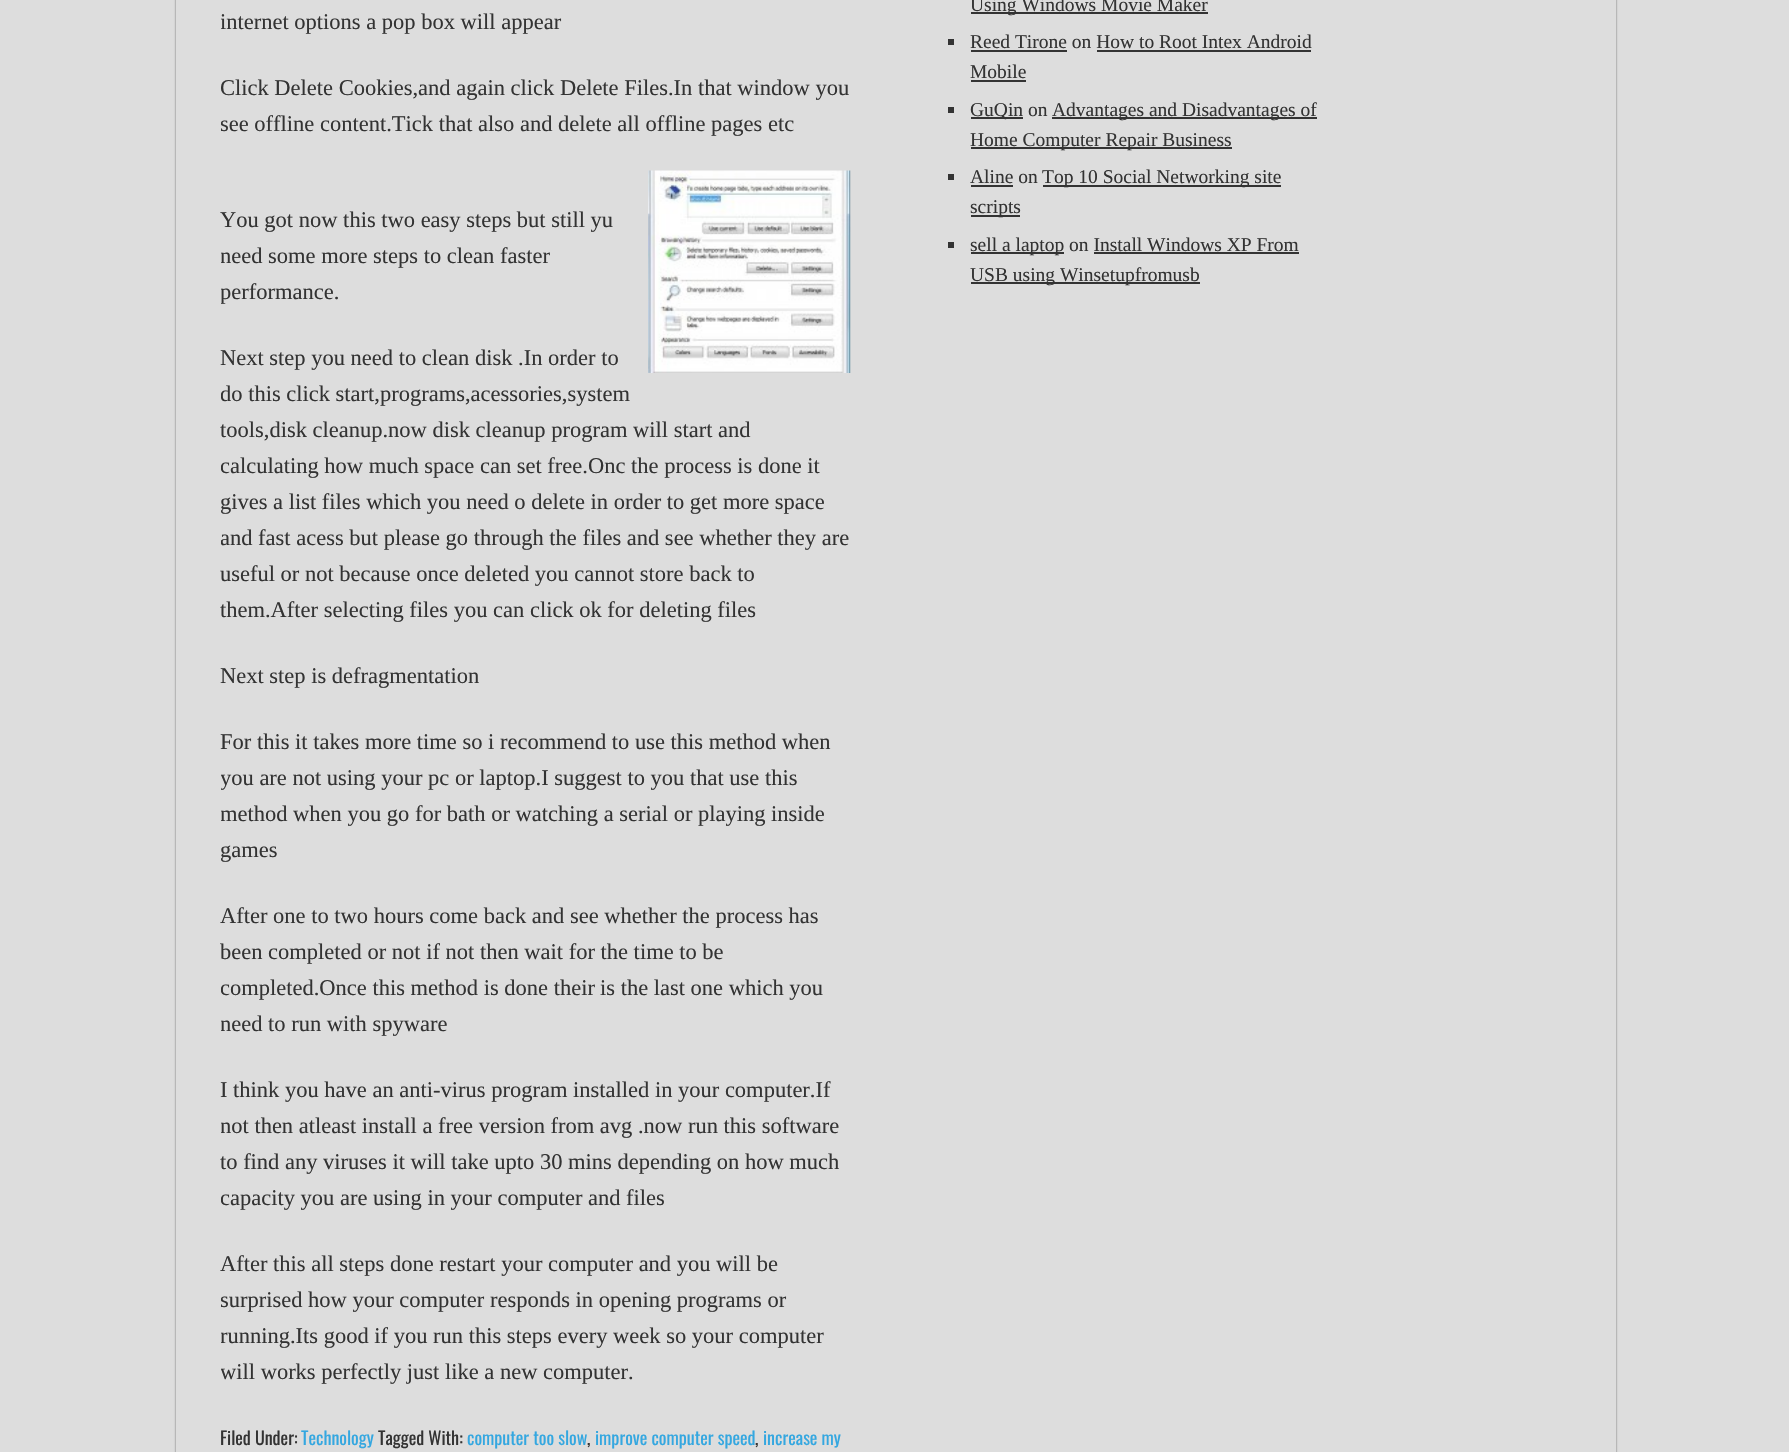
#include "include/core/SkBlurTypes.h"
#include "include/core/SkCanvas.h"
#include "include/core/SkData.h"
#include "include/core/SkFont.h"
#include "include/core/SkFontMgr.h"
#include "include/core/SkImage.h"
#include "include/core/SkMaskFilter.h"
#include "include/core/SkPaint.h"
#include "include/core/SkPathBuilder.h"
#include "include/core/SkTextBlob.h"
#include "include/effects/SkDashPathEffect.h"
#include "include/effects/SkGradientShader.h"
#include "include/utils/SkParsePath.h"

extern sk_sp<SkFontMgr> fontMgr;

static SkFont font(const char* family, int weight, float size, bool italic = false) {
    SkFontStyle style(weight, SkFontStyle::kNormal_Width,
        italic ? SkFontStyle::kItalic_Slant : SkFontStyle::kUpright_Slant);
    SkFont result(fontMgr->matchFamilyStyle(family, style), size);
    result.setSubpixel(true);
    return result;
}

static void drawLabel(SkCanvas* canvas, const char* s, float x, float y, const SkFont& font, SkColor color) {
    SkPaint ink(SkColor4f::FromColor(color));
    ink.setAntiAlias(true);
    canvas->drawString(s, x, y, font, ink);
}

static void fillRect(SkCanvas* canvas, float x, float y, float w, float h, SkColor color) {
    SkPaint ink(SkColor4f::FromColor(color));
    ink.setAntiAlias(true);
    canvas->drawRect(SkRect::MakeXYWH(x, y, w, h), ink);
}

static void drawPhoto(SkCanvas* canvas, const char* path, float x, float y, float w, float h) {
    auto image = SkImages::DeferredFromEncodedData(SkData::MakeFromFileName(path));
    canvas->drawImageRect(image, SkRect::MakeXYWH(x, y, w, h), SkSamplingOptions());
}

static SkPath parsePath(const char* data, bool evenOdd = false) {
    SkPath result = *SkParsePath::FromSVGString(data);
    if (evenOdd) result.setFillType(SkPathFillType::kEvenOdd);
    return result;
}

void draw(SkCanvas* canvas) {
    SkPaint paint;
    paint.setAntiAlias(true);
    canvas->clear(0xFFDDDDDD);
    canvas->save();
    canvas->clipPath(parsePath("M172 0H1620V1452H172ZM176-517H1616V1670H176Z", true), true);
    paint.setColor(0xFF666666);
    paint.setMaskFilter(SkMaskFilter::MakeBlur(kNormal_SkBlurStyle, 1));
    canvas->drawRect(SkRect::MakeXYWH(176, -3, 1440, 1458), paint);
    paint.setMaskFilter(nullptr);
    canvas->restore();
    canvas->save();
    canvas->clipRect(SkRect::MakeXYWH(221, 0, 630, 1419));
    SkFont font1 = font("Liberation Serif", 400, 22.5f);
    drawLabel(canvas, "internet options a pop box will appear", 220, 29, font1, 0xFF333333);
    drawLabel(canvas, "Click Delete Cookies,and again click Delete Files.In that window you", 220, 95, font1, 0xFF333333);
    drawLabel(canvas, "see offline content.Tick that also and delete all offline pages etc", 220, 131, font1, 0xFF333333);
    canvas->restore();
    drawLabel(canvas, "You got now this two easy steps but still yu", 220, 227, font1, 0xFF333333);
    canvas->save();
    canvas->clipRect(SkRect::MakeXYWH(221, 0, 630, 1419));
    drawLabel(canvas, "need some more steps to clean faster", 220, 263, font1, 0xFF333333);
    drawLabel(canvas, "performance.", 220, 299, font1, 0xFF333333);
    canvas->restore();
    drawPhoto(canvas, "assets/img1.png", 648, 170, 203, 203);
    drawLabel(canvas, "Next step you need to clean disk .In order to", 220, 365, font1, 0xFF333333);
    canvas->save();
    canvas->clipRect(SkRect::MakeXYWH(221, 0, 630, 1419));
    drawLabel(canvas, "do this click start,programs,acessories,system", 220, 401, font1, 0xFF333333);
    canvas->restore();
    drawLabel(canvas, "tools,disk cleanup.now disk cleanup program will start and", 220, 437, font1, 0xFF333333);
    canvas->save();
    canvas->clipRect(SkRect::MakeXYWH(221, 0, 630, 1419));
    drawLabel(canvas, "calculating how much space can set free.Onc the process is done it", 220, 473, font1, 0xFF333333);
    canvas->restore();
    drawLabel(canvas, "gives a list files which you need o delete in order to get more space", 220, 509, font1, 0xFF333333);
    canvas->save();
    canvas->clipRect(SkRect::MakeXYWH(221, 0, 630, 1419));
    drawLabel(canvas, "and fast acess but please go through the files and see whether they are", 220, 545, font1, 0xFF333333);
    canvas->restore();
    drawLabel(canvas, "useful or not because once deleted you cannot store back to", 220, 581, font1, 0xFF333333);
    drawLabel(canvas, "them.After selecting files you can click ok for deleting files", 220, 617, font1, 0xFF333333);
    drawLabel(canvas, "Next step is defragmentation", 220, 683, font1, 0xFF333333);
    drawLabel(canvas, "For this it takes more time so i recommend to use this method when", 220, 749, font1, 0xFF333333);
    canvas->save();
    canvas->clipRect(SkRect::MakeXYWH(221, 0, 630, 1419));
    drawLabel(canvas, "you are not using your pc or laptop.I suggest to you that use this", 220, 785, font1, 0xFF333333);
    drawLabel(canvas, "method when you go for bath or watching a serial or playing inside", 220, 821, font1, 0xFF333333);
    canvas->restore();
    drawLabel(canvas, "games", 220, 857, font1, 0xFF333333);
    drawLabel(canvas, "After one to two hours come back and see whether the process has", 220, 923, font1, 0xFF333333);
    drawLabel(canvas, "been completed or not if not then wait for the time to be", 220, 959, font1, 0xFF333333);
    canvas->save();
    canvas->clipRect(SkRect::MakeXYWH(221, 0, 630, 1419));
    drawLabel(canvas, "completed.Once this method is done their", 220, 995, font1, 0xFF333333);
    canvas->restore();
    drawLabel(canvas, "is the last one which you", 600, 995, font1, 0xFF333333);
    canvas->save();
    canvas->clipRect(SkRect::MakeXYWH(221, 0, 630, 1419));
    drawLabel(canvas, "need to run with spyware", 220, 1031, font1, 0xFF333333);
    canvas->restore();
    drawLabel(canvas, "I think you have an anti-virus program installed in your computer.If", 220, 1097, font1, 0xFF333333);
    canvas->save();
    canvas->clipRect(SkRect::MakeXYWH(221, 0, 630, 1419));
    drawLabel(canvas, "not then atleast install a free version from avg .now run this software", 220, 1133, font1, 0xFF333333);
    canvas->restore();
    drawLabel(canvas, "to find any viruses it will take upto 30 mins depending on how much", 220, 1169, font1, 0xFF333333);
    canvas->save();
    canvas->clipRect(SkRect::MakeXYWH(221, 0, 630, 1419));
    drawLabel(canvas, "capacity you are using in your computer and files", 220, 1205, font1, 0xFF333333);
    canvas->restore();
    drawLabel(canvas, "After this all steps done restart your computer and you will be", 220, 1271, font1, 0xFF333333);
    canvas->save();
    canvas->clipRect(SkRect::MakeXYWH(221, 0, 630, 1419));
    drawLabel(canvas, "surprised how your computer responds in opening programs or", 220, 1307, font1, 0xFF333333);
    drawLabel(canvas, "running.Its good if you run this steps every week so your computer", 220, 1343, font1, 0xFF333333);
    drawLabel(canvas, "will works perfectly just like a new computer.", 220, 1379, font1, 0xFF333333);
    canvas->restore();
    SkFont font2 = font("Oswald", 400, 18);
    drawLabel(canvas, "Filed Under:", 220, 1445, font2, 0xFF333333);
    drawLabel(canvas, "Technology", 301, 1445, font2, 0xFF34A7E0);
    drawLabel(canvas, "Tagged With:", 378, 1445, font2, 0xFF333333);
    drawLabel(canvas, "computer too slow", 467, 1445, font2, 0xFF34A7E0);
    drawLabel(canvas, ",", 587, 1445, font2, 0xFF333333);
    drawLabel(canvas, "improve computer speed", 595, 1445, font2, 0xFF34A7E0);
    drawLabel(canvas, ",", 755, 1445, font2, 0xFF333333);
    drawLabel(canvas, "increase my", 763, 1445, font2, 0xFF34A7E0);
    fillRect(canvas, 971, 12, 237, 2, 0xFF333333);
    SkFont font3 = font("Liberation Serif", 400, 19.5f);
    drawLabel(canvas, "Using Windows Movie Maker", 970, 11, font3, 0xFF333333);
    fillRect(canvas, 948, 39, 6, 6, 0xFF333333);
    drawLabel(canvas, "Reed Tirone on How to Root Intex Android", 970, 48, font3, 0xFF333333);
    fillRect(canvas, 971, 50, 96, 2, 0xFF333333);
    drawLabel(canvas, "Mobile", 970, 78, font3, 0xFF333333);
    fillRect(canvas, 1097, 50, 214, 2, 0xFF333333);
    fillRect(canvas, 971, 80, 55, 2, 0xFF333333);
    fillRect(canvas, 948, 107, 6, 6, 0xFF333333);
    fillRect(canvas, 971, 117, 52, 2, 0xFF333333);
    drawLabel(canvas, "GuQin on", 970, 116, font3, 0xFF333333);
    fillRect(canvas, 1052, 117, 265, 2, 0xFF333333);
    drawLabel(canvas, "Advantages and Disadvantages of", 1052, 116, font3, 0xFF333333);
    fillRect(canvas, 971, 147, 261, 2, 0xFF333333);
    drawLabel(canvas, "Home Computer Repair Business", 970, 146, font3, 0xFF333333);
    fillRect(canvas, 948, 174, 6, 6, 0xFF333333);
    drawLabel(canvas, "Aline on", 970, 183, font3, 0xFF333333);
    fillRect(canvas, 971, 185, 42, 2, 0xFF333333);
    fillRect(canvas, 1043, 185, 238, 2, 0xFF333333);
    drawLabel(canvas, "Top 10 Social Networking site", 1042, 183, font3, 0xFF333333);
    fillRect(canvas, 971, 215, 49, 2, 0xFF333333);
    drawLabel(canvas, "scripts", 970, 213, font3, 0xFF333333);
    fillRect(canvas, 948, 242, 6, 6, 0xFF333333);
    fillRect(canvas, 971, 252, 93, 2, 0xFF333333);
    drawLabel(canvas, "sell a laptop on Install Windows XP From", 970, 251, font3, 0xFF333333);
    fillRect(canvas, 971, 282, 229, 2, 0xFF333333);
    drawLabel(canvas, "USB using Winsetupfromusb", 970, 281, font3, 0xFF333333);
    fillRect(canvas, 1094, 252, 205, 2, 0xFF333333);
}
